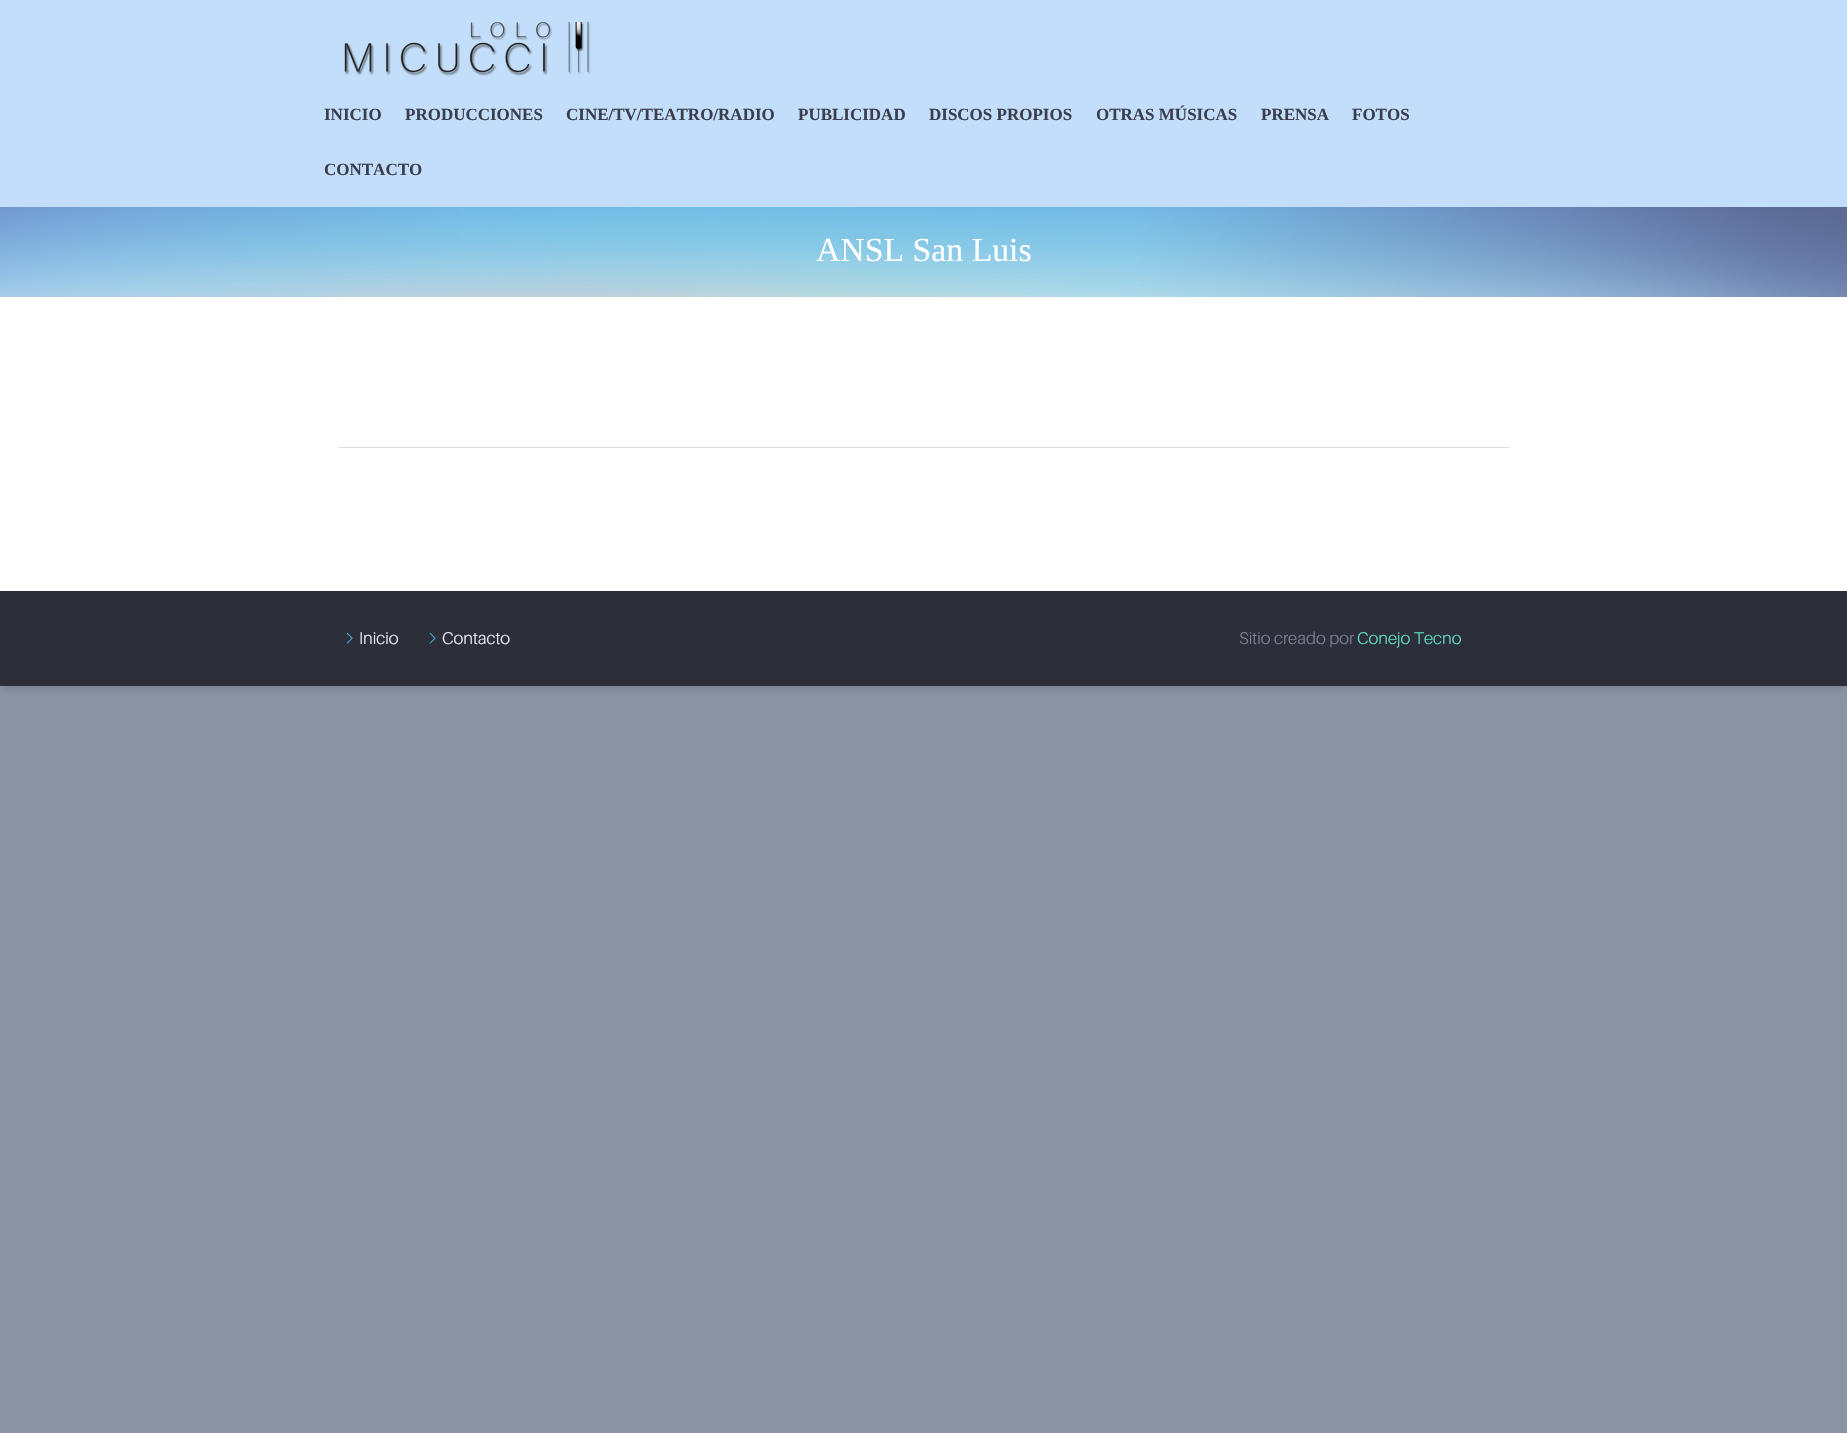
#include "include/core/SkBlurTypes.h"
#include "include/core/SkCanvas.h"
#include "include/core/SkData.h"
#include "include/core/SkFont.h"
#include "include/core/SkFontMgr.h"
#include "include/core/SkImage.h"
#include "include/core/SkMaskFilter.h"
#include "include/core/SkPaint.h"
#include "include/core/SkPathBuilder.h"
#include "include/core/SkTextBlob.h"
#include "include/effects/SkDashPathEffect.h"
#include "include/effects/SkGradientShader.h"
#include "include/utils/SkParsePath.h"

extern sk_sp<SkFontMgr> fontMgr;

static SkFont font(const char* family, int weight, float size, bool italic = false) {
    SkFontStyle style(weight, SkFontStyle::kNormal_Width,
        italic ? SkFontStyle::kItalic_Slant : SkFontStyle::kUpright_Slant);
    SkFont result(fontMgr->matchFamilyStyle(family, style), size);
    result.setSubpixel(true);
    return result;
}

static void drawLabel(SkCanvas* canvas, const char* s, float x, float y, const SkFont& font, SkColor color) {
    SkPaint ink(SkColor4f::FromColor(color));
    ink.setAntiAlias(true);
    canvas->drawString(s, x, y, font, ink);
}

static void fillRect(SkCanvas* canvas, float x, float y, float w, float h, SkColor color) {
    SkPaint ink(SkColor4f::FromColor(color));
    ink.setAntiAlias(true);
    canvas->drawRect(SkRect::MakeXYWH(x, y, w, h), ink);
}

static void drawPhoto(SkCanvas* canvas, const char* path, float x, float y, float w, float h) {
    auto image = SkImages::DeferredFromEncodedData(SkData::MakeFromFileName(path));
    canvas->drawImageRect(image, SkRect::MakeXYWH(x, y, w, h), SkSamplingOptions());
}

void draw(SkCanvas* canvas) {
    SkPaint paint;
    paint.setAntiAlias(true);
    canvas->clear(0xFF8B94A5);
    paint.setColor(0x33000000);
    paint.setMaskFilter(SkMaskFilter::MakeBlur(kNormal_SkBlurStyle, 5.5f));
    canvas->drawRect(SkRect::MakeXYWH(0, 0, 1847, 686), paint);
    paint.setMaskFilter(nullptr);
    fillRect(canvas, 0, 297, 1847, 294, 0xFFFFFFFF);
    fillRect(canvas, 0, 0, 1847, 207, 0xFFC3DEFA);
    drawPhoto(canvas, "assets/img1.png", 344, 21, 247, 55);
    SkFont font1 = font("Liberation Serif", 700, 17);
    drawLabel(canvas, "INICIO", 324, 120, font1, 0xFF3B3E4F);
    drawLabel(canvas, "PRODUCCIONES", 405, 120, font1, 0xFF3B3E4F);
    drawLabel(canvas, "CINE/TV/TEATRO/RADIO", 566, 120, font1, 0xFF3B3E4F);
    drawLabel(canvas, "PUBLICIDAD", 798, 120, font1, 0xFF3B3E4F);
    drawLabel(canvas, "DISCOS PROPIOS", 929, 120, font1, 0xFF3B3E4F);
    drawLabel(canvas, "OTRAS MÚSICAS", 1096, 120, font1, 0xFF3B3E4F);
    drawLabel(canvas, "PRENSA", 1261, 120, font1, 0xFF3B3E4F);
    drawLabel(canvas, "FOTOS", 1352, 120, font1, 0xFF3B3E4F);
    drawLabel(canvas, "CONTACTO", 324, 175, font1, 0xFF3B3E4F);
    drawPhoto(canvas, "assets/img2.png", 0, 207, 1847, 90);
    SkFont font2 = font("Liberation Serif", 400, 33.75f);
    drawLabel(canvas, "ANSL San Luis", 816, 261, font2, 0xFFFFFFFF);
    fillRect(canvas, 339, 447, 1170, 1, 0xFFD6DDE3);
    fillRect(canvas, 0, 591, 1847, 95, 0xFF2C2E3A);
    drawPhoto(canvas, "assets/img3.png", 346, 632, 7, 12);
    SkFont font3 = font("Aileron", 300, 17);
    drawLabel(canvas, "Inicio", 359, 644, font3, 0xFFE8ECEF);
    drawPhoto(canvas, "assets/img3.png", 429, 632, 7, 12);
    drawLabel(canvas, "Contacto", 442, 644, font3, 0xFFE8ECEF);
    drawLabel(canvas, "Sitio creado por", 1239, 644, font3, 0xFF7B848F);
    drawLabel(canvas, "Conejo Tecno", 1357, 644, font3, 0xFF60DBC4);
}
